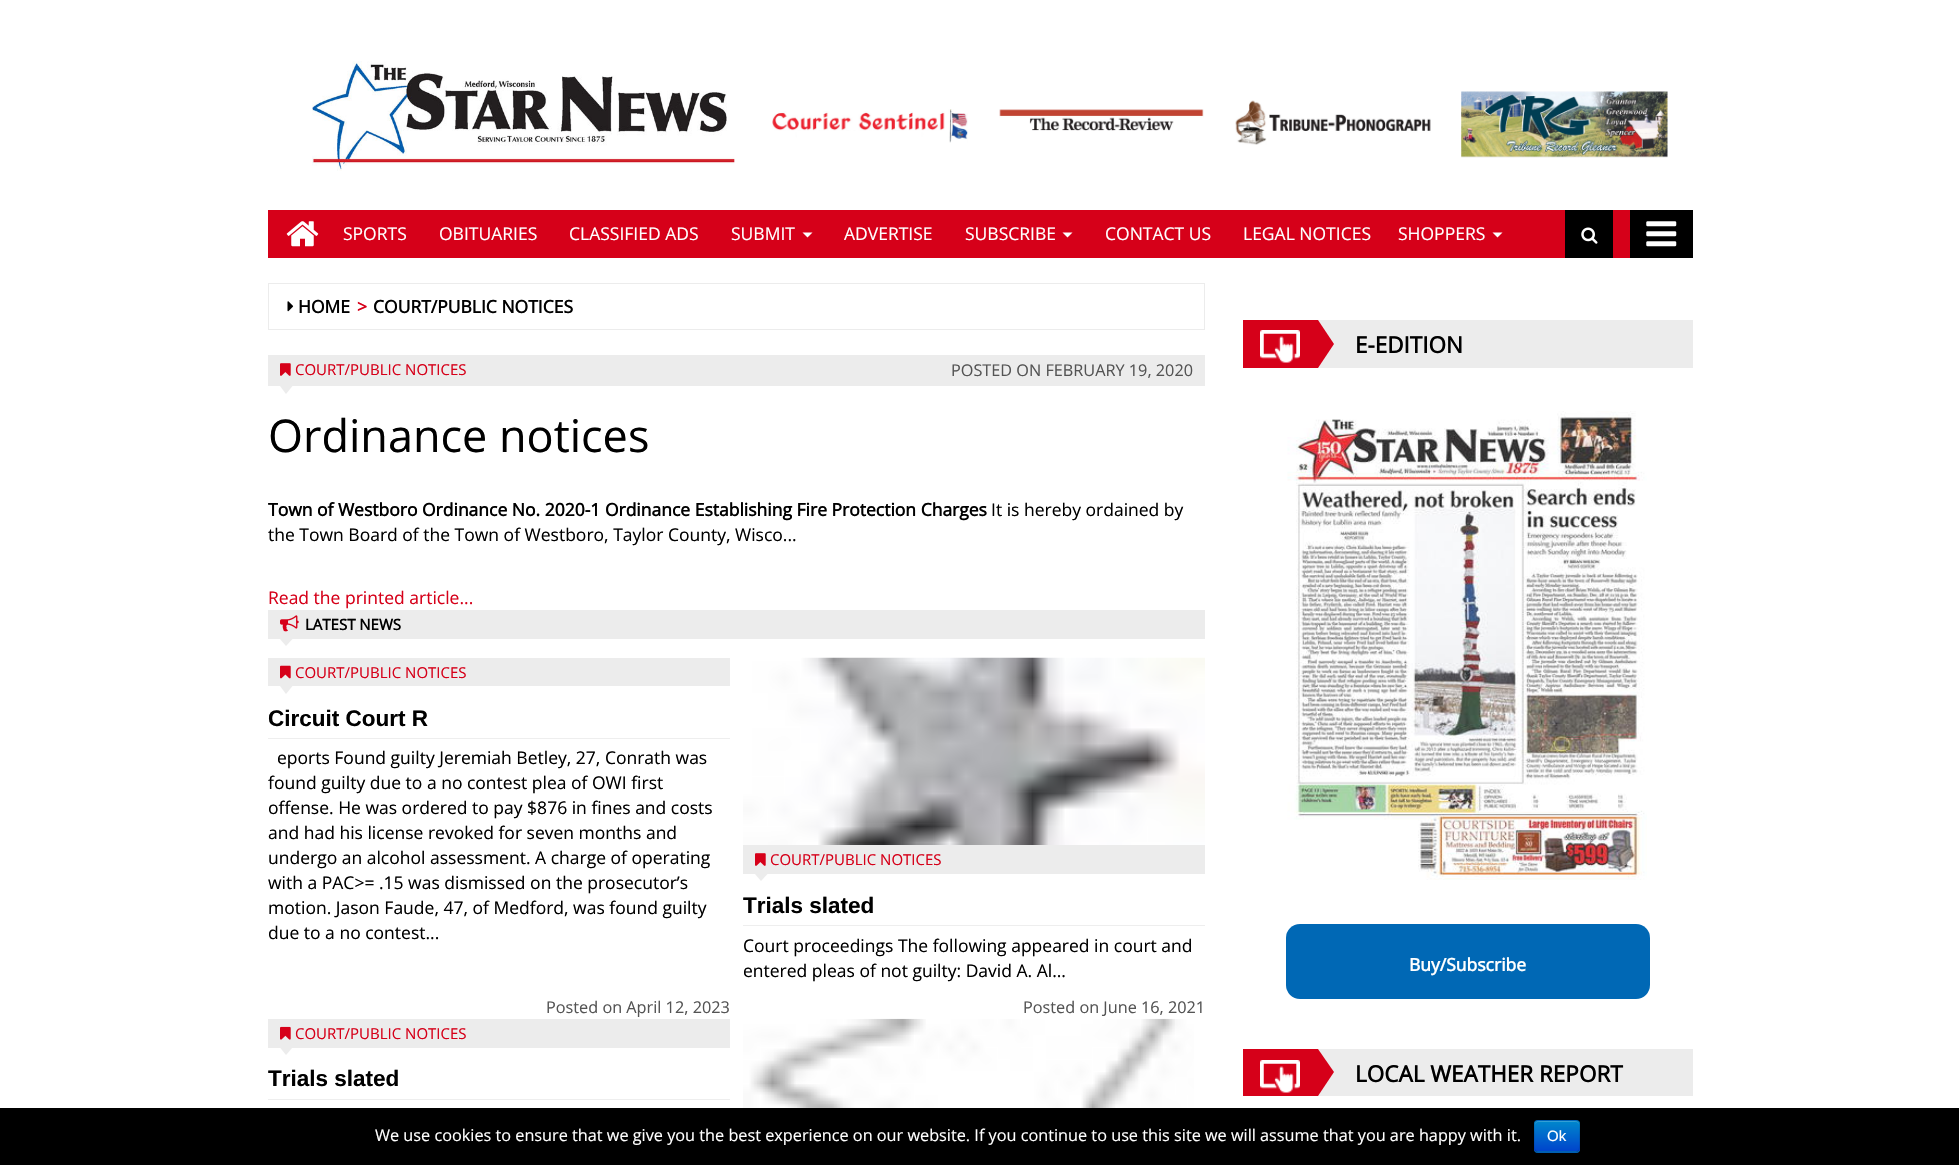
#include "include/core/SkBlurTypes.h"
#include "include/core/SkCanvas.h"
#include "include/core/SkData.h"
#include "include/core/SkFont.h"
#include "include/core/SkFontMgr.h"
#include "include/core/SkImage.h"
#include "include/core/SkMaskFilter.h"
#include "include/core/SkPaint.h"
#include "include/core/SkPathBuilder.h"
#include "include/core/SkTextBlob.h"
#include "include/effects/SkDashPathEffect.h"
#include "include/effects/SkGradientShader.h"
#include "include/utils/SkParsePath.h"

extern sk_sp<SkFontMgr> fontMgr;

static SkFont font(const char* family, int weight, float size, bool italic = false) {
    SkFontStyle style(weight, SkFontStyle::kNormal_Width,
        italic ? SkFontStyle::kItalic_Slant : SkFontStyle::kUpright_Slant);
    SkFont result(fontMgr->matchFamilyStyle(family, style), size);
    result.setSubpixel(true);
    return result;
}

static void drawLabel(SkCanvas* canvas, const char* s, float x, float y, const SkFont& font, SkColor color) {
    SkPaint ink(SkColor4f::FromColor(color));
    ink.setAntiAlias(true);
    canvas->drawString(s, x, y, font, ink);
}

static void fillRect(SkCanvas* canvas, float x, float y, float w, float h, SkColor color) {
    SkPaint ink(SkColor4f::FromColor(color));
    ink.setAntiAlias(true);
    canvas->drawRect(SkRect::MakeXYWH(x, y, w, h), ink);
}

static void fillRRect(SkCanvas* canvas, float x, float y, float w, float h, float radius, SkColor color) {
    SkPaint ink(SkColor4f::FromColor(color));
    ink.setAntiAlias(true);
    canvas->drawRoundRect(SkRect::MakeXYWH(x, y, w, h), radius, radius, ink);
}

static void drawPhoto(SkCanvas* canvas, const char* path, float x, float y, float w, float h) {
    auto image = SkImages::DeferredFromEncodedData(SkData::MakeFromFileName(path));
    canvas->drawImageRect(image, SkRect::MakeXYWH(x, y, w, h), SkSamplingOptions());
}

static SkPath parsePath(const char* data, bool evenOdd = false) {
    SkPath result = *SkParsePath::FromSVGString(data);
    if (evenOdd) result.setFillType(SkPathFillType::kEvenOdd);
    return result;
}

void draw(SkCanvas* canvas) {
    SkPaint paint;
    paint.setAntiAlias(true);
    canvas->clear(0xFFFFFFFF);
    drawPhoto(canvas, "assets/img1.png", 312, 61, 423, 110);
    drawPhoto(canvas, "assets/img2.png", 772, 109, 196, 34);
    drawPhoto(canvas, "assets/img3.png", 999, 109, 205, 22);
    drawPhoto(canvas, "assets/img4.png", 1235, 100, 196, 45);
    drawPhoto(canvas, "assets/img5.png", 1461, 91, 207, 67);
    fillRect(canvas, 268, 210, 1362, 48, 0xFFD60019);
    drawPhoto(canvas, "assets/img6.png", 286, 221, 33, 26);
    SkFont font1 = font("Open Sans", 400, 17.5f);
    drawLabel(canvas, "SPORTS", 343, 240, font1, 0xFFFFFFFF);
    drawLabel(canvas, "OBITUARIES", 439, 240, font1, 0xFFFFFFFF);
    drawLabel(canvas, "CLASSIFIED ADS", 569, 240, font1, 0xFFFFFFFF);
    drawLabel(canvas, "SUBMIT", 731, 240, font1, 0xFFFFFFFF);
    paint.setColor(0xFFFFFFFF);
    canvas->drawPath(parsePath("M802.5 232.5H812.5L807.5 237.5Z"), paint);
    drawLabel(canvas, "ADVERTISE", 844, 240, font1, 0xFFFFFFFF);
    drawLabel(canvas, "SUBSCRIBE", 965, 240, font1, 0xFFFFFFFF);
    canvas->drawPath(parsePath("M1062.5 232.5H1072.5L1067.5 237.5Z"), paint);
    drawLabel(canvas, "CONTACT US", 1105, 240, font1, 0xFFFFFFFF);
    drawLabel(canvas, "LEGAL NOTICES", 1243, 240, font1, 0xFFFFFFFF);
    drawLabel(canvas, "SHOPPERS", 1398, 240, font1, 0xFFFFFFFF);
    canvas->drawPath(parsePath("M1492.5 232.5H1502.5L1497.5 237.5Z"), paint);
    fillRect(canvas, 1565, 210, 48, 48, 0xFF000000);
    drawPhoto(canvas, "assets/img7.png", 1581, 227, 17, 17);
    fillRect(canvas, 1630, 210, 63, 48, 0xFF000000);
    drawPhoto(canvas, "assets/img8.png", 1646, 221, 31, 26);
    paint.setStroke(true);
    paint.setStrokeWidth(1);
    paint.setColor(0xFFECECEC);
    canvas->drawRect(SkRect::MakeXYWH(268.5f, 283.5f, 936, 46), paint);
    drawPhoto(canvas, "assets/img9.png", 287, 301, 7, 11);
    SkFont font2 = font("Open Sans", 700, 17.5f);
    drawLabel(canvas, "HOME", 298, 313, font2, 0xFF000000);
    drawLabel(canvas, ">", 357, 313, font2, 0xFFD60019);
    drawLabel(canvas, "COURT/PUBLIC NOTICES", 373, 313, font2, 0xFF000000);
    fillRect(canvas, 268, 355, 937, 31, 0xFFECECEC);
    drawPhoto(canvas, "assets/img10.png", 280, 363, 11, 13);
    SkFont font3 = font("Open Sans", 400, 15);
    drawLabel(canvas, "COURT/PUBLIC NOTICES", 295, 375, font3, 0xFFD60019);
    SkFont font4 = font("Open Sans", 400, 16.25f);
    drawLabel(canvas, "POSTED ON FEBRUARY 19, 2020", 951, 376, font4, 0xFF545454);
    paint.setStroke(false);
    canvas->drawPath(parsePath("M280 386H292.5L286 394Z"), paint);
    SkFont font5 = font("Open Sans", 400, 45);
    drawLabel(canvas, "Ordinance notices", 268, 452, font5, 0xFF000000);
    drawLabel(canvas, "Town of Westboro Ordinance No. 2020-1 Ordinance Establishing Fire Protection Charges", 268, 516, font2, 0xFF000000);
    drawLabel(canvas, "It is hereby ordained by", 991, 516, font1, 0xFF000000);
    drawLabel(canvas, "the Town Board of the Town of Westboro, Taylor County, Wisco...", 268, 541, font1, 0xFF000000);
    drawLabel(canvas, "Read the printed article...", 268, 604, font1, 0xFFD60019);
    fillRect(canvas, 268, 610, 937, 29, 0xFFECECEC);
    drawPhoto(canvas, "assets/img11.png", 280, 615, 19, 17);
    SkFont font6 = font("Open Sans", 700, 15);
    drawLabel(canvas, "LATEST NEWS", 305, 630, font6, 0xFF000000);
    canvas->drawPath(parsePath("M280 639H292.5L286 646Z"), paint);
    fillRect(canvas, 268, 658, 462, 28, 0xFFECECEC);
    drawPhoto(canvas, "assets/img12.png", 280, 665, 11, 14);
    drawLabel(canvas, "COURT/PUBLIC NOTICES", 295, 678, font3, 0xFFD60019);
    canvas->drawPath(parsePath("M280 686H292.5L286 694Z"), paint);
    SkFont font7 = font("Liberation Sans", 700, 22.5f);
    drawLabel(canvas, "Circuit Court R", 268, 726, font7, 0xFF000000);
    fillRect(canvas, 268, 738, 462, 1, 0xFFEEEEEE);
    drawLabel(canvas, "eports Found guilty Jeremiah Betley, 27, Conrath was", 277, 764, font1, 0xFF000000);
    drawLabel(canvas, "found guilty due to a no contest plea of OWI first", 268, 789, font1, 0xFF000000);
    drawLabel(canvas, "offense. He was ordered to pay $876 in fines and costs", 268, 814, font1, 0xFF000000);
    drawLabel(canvas, "and had his license revoked for seven months and", 268, 839, font1, 0xFF000000);
    drawLabel(canvas, "undergo an alcohol assessment. A charge of operating", 268, 864, font1, 0xFF000000);
    drawLabel(canvas, "with a PAC>= .15 was dismissed on the prosecutor’s", 268, 889, font1, 0xFF000000);
    drawLabel(canvas, "motion. Jason Faude, 47, of Medford, was found guilty", 268, 914, font1, 0xFF000000);
    drawLabel(canvas, "due to a no contest...", 268, 939, font1, 0xFF000000);
    drawLabel(canvas, "Posted on April 12, 2023", 546, 1013, font4, 0xFF545454);
    fillRect(canvas, 268, 1019, 462, 29, 0xFFECECEC);
    drawPhoto(canvas, "assets/img13.png", 280, 1026, 11, 14);
    drawLabel(canvas, "COURT/PUBLIC NOTICES", 295, 1039, font3, 0xFFD60019);
    canvas->drawPath(parsePath("M280 1047.5H292.5L286 1055Z"), paint);
    drawLabel(canvas, "Trials slated", 268, 1086, font7, 0xFF000000);
    fillRect(canvas, 268, 1099, 462, 1, 0xFFEEEEEE);
    drawPhoto(canvas, "assets/img14.png", 743, 657, 462, 188);
    fillRect(canvas, 743, 845, 462, 29, 0xFFECECEC);
    drawPhoto(canvas, "assets/img10.png", 755, 853, 11, 13);
    drawLabel(canvas, "COURT/PUBLIC NOTICES", 770, 865, font3, 0xFFD60019);
    canvas->drawPath(parsePath("M755 874H767.5L761 881Z"), paint);
    drawLabel(canvas, "Trials slated", 743, 913, font7, 0xFF000000);
    fillRect(canvas, 743, 925, 462, 1, 0xFFEEEEEE);
    drawLabel(canvas, "Court proceedings The following appeared in court and", 743, 952, font1, 0xFF000000);
    drawLabel(canvas, "entered pleas of not guilty: David A. Al...", 743, 977, font1, 0xFF000000);
    drawLabel(canvas, "Posted on June 16, 2021", 1023, 1013, font4, 0xFF545454);
    drawPhoto(canvas, "assets/img15.png", 743, 1018, 451, 90);
    fillRect(canvas, 1318, 320, 375, 48, 0xFFECECEC);
    fillRect(canvas, 1243, 320, 75, 48, 0xFFD60019);
    drawPhoto(canvas, "assets/img16.png", 1260, 330, 40, 33);
    paint.setColor(0xFFD60019);
    canvas->drawPath(parsePath("M1318 368V320L1334 344Z"), paint);
    SkFont font8 = font("Open Sans", 700, 22.5f);
    drawLabel(canvas, "E-EDITION", 1355, 353, font8, 0xFF000000);
    drawPhoto(canvas, "assets/img17.png", 1287, 411, 360, 469);
    fillRRect(canvas, 1286, 924, 364, 75, 14, 0xFF0068B5);
    drawLabel(canvas, "Buy/Subscribe", 1409, 971, font2, 0xFFFFFFFF);
    fillRect(canvas, 1318, 1049, 375, 47, 0xFFECECEC);
    fillRect(canvas, 1243, 1049, 75, 47, 0xFFD60019);
    drawPhoto(canvas, "assets/img16.png", 1260, 1060, 40, 33);
    canvas->drawPath(parsePath("M1318 1096V1049L1334 1072Z"), paint);
    drawLabel(canvas, "LOCAL WEATHER REPORT", 1355, 1082, font8, 0xFF000000);
    fillRect(canvas, 0, 1108, 1959, 57, 0xFF000000);
    drawLabel(canvas, "We use cookies to ensure that we give you the best experience on our website. If you continue to use this site we will assume that you are happy with it.", 375, 1141, font4, 0xFFFFFFFF);
    fillRRect(canvas, 1534, 1120, 46, 33, 4, 0xFF006DCC);
    canvas->save();
    canvas->clipPath(parsePath("M1538 1120H1576C1578 1120 1580 1122 1580 1124V1149C1580 1151 1578 1153 1576 1153H1538C1536 1153 1534 1151 1534 1149V1124C1534 1122 1536 1120 1538 1120Z"), true);
    {
        const SkColor colors[] = {0xFF0088CC, 0xFF0044CC};
        const float stops[] = {0, 1};
        const SkPoint ends[] = {{1557, 1121}, {1557, 1151}};
        paint.setShader(SkGradientShader::MakeLinear(ends, colors, stops, 2, SkTileMode::kClamp));
        paint.setAlpha(255);
    }
    canvas->drawRect(SkRect::MakeXYWH(1534, 1121, 46, 30), paint);
    canvas->restore();
    paint.setShader(nullptr);
    paint.setColor(0xFF339FD6);
    canvas->drawPath(parsePath("M1538 1122H1576C1578 1122 1579 1124 1579 1125C1579 1120 1575 1121 1570 1121H1544C1539 1121 1535 1120 1535 1125C1535 1124 1536 1122 1538 1122Z"), paint);
    paint.setStroke(true);
    paint.setStrokeWidth(1.2f);
    paint.setColor(0x40000000);
    canvas->drawPath(parsePath("M1578.5 1151L1576 1152H1537.5L1535.5 1151"), paint);
    paint.setColor(0x1A000000);
    canvas->drawPath(parsePath("M1535.5 1151C1533 1149 1534.5 1139 1534.5 1136C1534.5 1121.5 1531 1120.5 1544 1120.5H1570C1583 1120.5 1579.5 1121.5 1579.5 1136C1579.5 1139 1580.5 1149 1578.5 1151"), paint);
    SkFont font9 = font("Liberation Sans", 400, 15);
    drawLabel(canvas, "Ok", 1547, 1141, font9, 0xFFFFFFFF);
}
